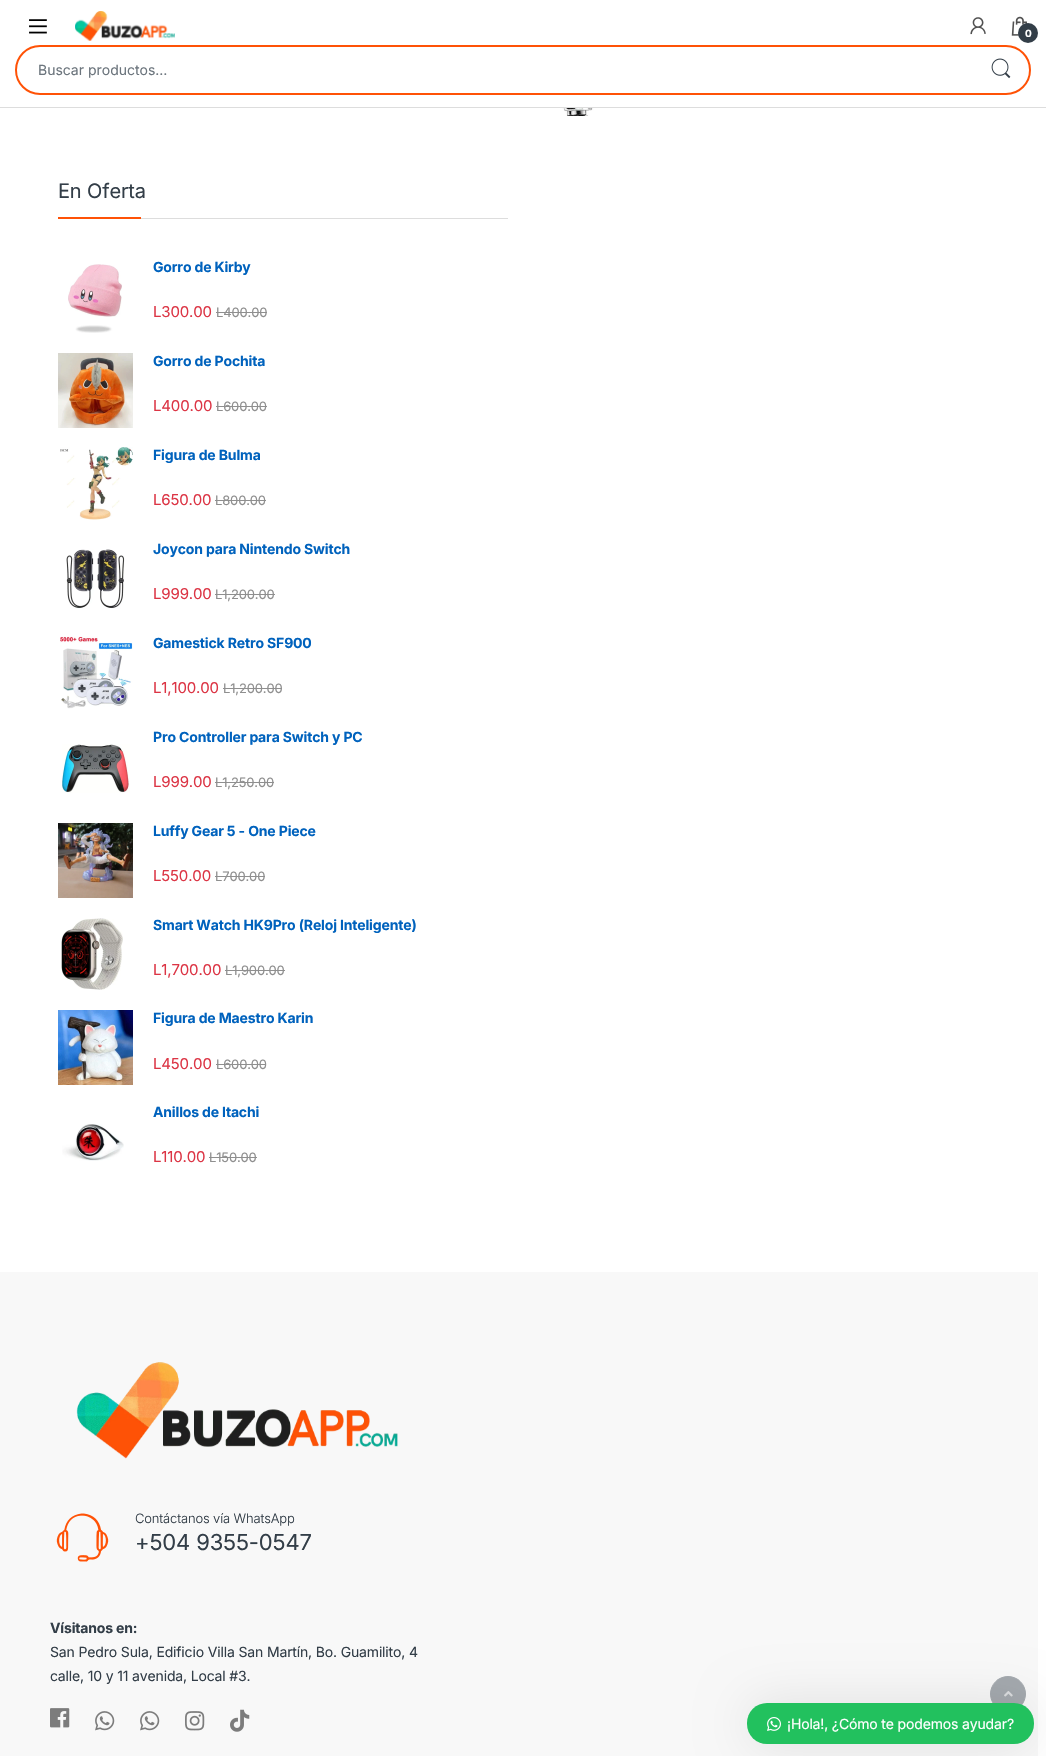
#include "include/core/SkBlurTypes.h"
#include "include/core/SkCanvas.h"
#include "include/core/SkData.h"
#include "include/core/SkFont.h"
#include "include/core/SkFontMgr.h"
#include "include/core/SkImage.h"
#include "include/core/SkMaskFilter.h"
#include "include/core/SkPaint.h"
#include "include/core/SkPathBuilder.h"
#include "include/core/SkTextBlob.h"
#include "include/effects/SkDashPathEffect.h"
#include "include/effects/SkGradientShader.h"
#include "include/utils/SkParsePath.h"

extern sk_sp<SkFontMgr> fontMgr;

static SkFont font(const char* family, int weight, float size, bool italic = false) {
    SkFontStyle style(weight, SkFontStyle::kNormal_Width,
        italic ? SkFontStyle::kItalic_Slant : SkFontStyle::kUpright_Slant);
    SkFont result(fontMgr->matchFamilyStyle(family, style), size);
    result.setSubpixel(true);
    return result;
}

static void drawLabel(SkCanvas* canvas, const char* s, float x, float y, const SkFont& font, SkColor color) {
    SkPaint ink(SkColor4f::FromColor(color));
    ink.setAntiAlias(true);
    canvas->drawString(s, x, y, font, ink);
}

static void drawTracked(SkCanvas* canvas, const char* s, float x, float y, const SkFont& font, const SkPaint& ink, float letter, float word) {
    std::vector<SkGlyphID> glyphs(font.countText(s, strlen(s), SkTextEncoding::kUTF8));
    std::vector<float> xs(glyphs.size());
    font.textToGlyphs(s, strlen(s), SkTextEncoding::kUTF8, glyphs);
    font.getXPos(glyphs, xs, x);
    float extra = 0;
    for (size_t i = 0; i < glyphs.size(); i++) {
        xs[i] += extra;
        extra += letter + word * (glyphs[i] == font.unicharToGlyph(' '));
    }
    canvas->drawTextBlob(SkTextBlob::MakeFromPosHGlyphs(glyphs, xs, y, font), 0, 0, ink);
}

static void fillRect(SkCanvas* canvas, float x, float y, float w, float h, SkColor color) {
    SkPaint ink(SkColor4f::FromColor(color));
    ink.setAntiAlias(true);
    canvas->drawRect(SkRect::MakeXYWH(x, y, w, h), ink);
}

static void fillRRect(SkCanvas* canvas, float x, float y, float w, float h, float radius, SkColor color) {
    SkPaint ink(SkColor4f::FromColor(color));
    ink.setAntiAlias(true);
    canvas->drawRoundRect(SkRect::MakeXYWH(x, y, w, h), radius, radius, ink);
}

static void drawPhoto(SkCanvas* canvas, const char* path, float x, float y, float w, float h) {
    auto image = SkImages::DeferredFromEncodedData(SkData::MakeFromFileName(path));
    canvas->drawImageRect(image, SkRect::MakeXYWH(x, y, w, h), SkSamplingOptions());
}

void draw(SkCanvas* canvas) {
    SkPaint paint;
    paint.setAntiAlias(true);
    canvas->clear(0xFFFFFFFF);
    fillRect(canvas, 0, 107, 1046, 1, 0xFFDDDDDD);
    drawPhoto(canvas, "assets/img1.png", 29, 19, 18, 15);
    drawPhoto(canvas, "assets/img2.png", 75, 11, 100, 30);
    drawPhoto(canvas, "assets/img3.png", 970, 17, 16, 18);
    drawPhoto(canvas, "assets/img4.png", 1011, 16, 17, 20);
    paint.setColor(0xFF333E48);
    canvas->drawCircle(1028, 33, 10, paint);
    SkFont font1 = font("Inter", 700, 10);
    paint.setColor(0xFFFFFFFF);
    drawTracked(canvas, "0", 1025, 37, font1, paint, -0.15f, 0);
    paint.setStroke(true);
    paint.setStrokeWidth(2);
    paint.setColor(0xFFFF5206);
    canvas->drawRoundRect(SkRect::MakeXYWH(16, 46, 1014, 48), 24, 24, paint);
    SkFont font2 = font("Inter", 400, 14);
    drawLabel(canvas, "Buscar productos…", 38, 75, font2, 0xFF6C757D);
    drawPhoto(canvas, "assets/img5.png", 991, 58, 20, 21);
    drawPhoto(canvas, "assets/img6.png", 538, 108, 75, 8);
    fillRect(canvas, 141, 218, 367, 1, 0xFFDDDDDD);
    SkFont font3 = font("Inter", 400, 20);
    paint.setStroke(false);
    paint.setColor(0xFF333E48);
    drawTracked(canvas, "En Oferta", 58, 198, font3, paint, -0.15f, 0);
    fillRect(canvas, 58, 217, 83, 2, 0xFFFF5206);
    drawPhoto(canvas, "assets/img7.png", 68, 264, 54, 69);
    SkFont font4 = font("Inter", 700, 14);
    paint.setColor(0xFF0062BD);
    drawTracked(canvas, "Gorro de Kirby", 153, 272, font4, paint, -0.15f, 0);
    SkFont font5 = font("Inter", 400, 15);
    paint.setColor(0xFFDC3545);
    drawTracked(canvas, "L300.00", 153, 317, font5, paint, -0.15f, 0);
    SkFont font6 = font("Inter", 400, 13);
    paint.setColor(0xFF8F8F8F);
    drawTracked(canvas, "L400.00", 216, 317, font6, paint, -0.15f, 0);
    fillRect(canvas, 216, 312, 51, 1, 0xFF8F8F8F);
    drawPhoto(canvas, "assets/img8.png", 58, 353, 75, 75);
    paint.setColor(0xFF0062BD);
    drawTracked(canvas, "Gorro de Pochita", 153, 366, font4, paint, -0.15f, 0);
    paint.setColor(0xFFDC3545);
    drawTracked(canvas, "L400.00", 153, 411, font5, paint, -0.15f, 0);
    paint.setColor(0xFF8F8F8F);
    drawTracked(canvas, "L600.00", 216, 411, font6, paint, -0.15f, 0);
    fillRect(canvas, 216, 406, 51, 1, 0xFF8F8F8F);
    drawPhoto(canvas, "assets/img9.png", 60, 447, 73, 73);
    paint.setColor(0xFF0062BD);
    drawTracked(canvas, "Figura de Bulma", 153, 460, font4, paint, -0.15f, 0);
    paint.setColor(0xFFDC3545);
    drawTracked(canvas, "L650.00", 153, 505, font5, paint, -0.15f, 0);
    paint.setColor(0xFF8F8F8F);
    drawTracked(canvas, "L800.00", 215, 505, font6, paint, -0.15f, 0);
    fillRect(canvas, 215, 500, 51, 1, 0xFF8F8F8F);
    drawPhoto(canvas, "assets/img10.png", 66, 549, 59, 60);
    paint.setColor(0xFF0062BD);
    drawTracked(canvas, "Joycon para Nintendo Switch", 153, 554, font4, paint, -0.15f, 0);
    paint.setColor(0xFFDC3545);
    drawTracked(canvas, "L999.00", 153, 599, font5, paint, -0.15f, 0);
    paint.setColor(0xFF8F8F8F);
    drawTracked(canvas, "L1,200.00", 215, 599, font6, paint, -0.15f, 0);
    fillRect(canvas, 215, 594, 60, 1, 0xFF8F8F8F);
    drawPhoto(canvas, "assets/img11.png", 60, 636, 73, 73);
    paint.setColor(0xFF0062BD);
    drawTracked(canvas, "Gamestick Retro SF900", 153, 648, font4, paint, -0.15f, 0);
    paint.setColor(0xFFDC3545);
    drawTracked(canvas, "L1,100.00", 153, 693, font5, paint, -0.15f, 0);
    paint.setColor(0xFF8F8F8F);
    drawTracked(canvas, "L1,200.00", 223, 693, font6, paint, -0.15f, 0);
    fillRect(canvas, 223, 688, 59, 1, 0xFF8F8F8F);
    paint.setColor(0xFF0062BD);
    drawTracked(canvas, "Pro Controller para Switch y PC", 153, 742, font4, paint, -0.15f, 0);
    drawPhoto(canvas, "assets/img12.png", 62, 744, 68, 49);
    paint.setColor(0xFFDC3545);
    drawTracked(canvas, "L999.00", 153, 787, font5, paint, -0.15f, 0);
    paint.setColor(0xFF8F8F8F);
    drawTracked(canvas, "L1,250.00", 215, 787, font6, paint, -0.15f, 0);
    fillRect(canvas, 215, 782, 59, 1, 0xFF8F8F8F);
    drawPhoto(canvas, "assets/img13.png", 58, 823, 75, 75);
    paint.setColor(0xFF0062BD);
    drawTracked(canvas, "Luffy Gear 5 - One Piece", 153, 836, font4, paint, -0.15f, 0);
    paint.setColor(0xFFDC3545);
    drawTracked(canvas, "L550.00", 153, 881, font5, paint, -0.15f, 0);
    paint.setColor(0xFF8F8F8F);
    drawTracked(canvas, "L700.00", 215, 881, font6, paint, -0.15f, 0);
    fillRect(canvas, 215, 876, 50, 1, 0xFF8F8F8F);
    drawPhoto(canvas, "assets/img14.png", 61, 918, 62, 72);
    paint.setColor(0xFF0062BD);
    drawTracked(canvas, "Smart Watch HK9Pro (Reloj Inteligente)", 153, 930, font4, paint, -0.15f, 0);
    paint.setColor(0xFFDC3545);
    drawTracked(canvas, "L1,700.00", 153, 975, font5, paint, -0.15f, 0);
    paint.setColor(0xFF8F8F8F);
    drawTracked(canvas, "L1,900.00", 225, 975, font6, paint, -0.15f, 0);
    fillRect(canvas, 225, 970, 60, 1, 0xFF8F8F8F);
    drawPhoto(canvas, "assets/img15.png", 58, 1010, 75, 75);
    paint.setColor(0xFF0062BD);
    drawTracked(canvas, "Figura de Maestro Karin", 153, 1023, font4, paint, -0.15f, 0);
    paint.setColor(0xFFDC3545);
    drawTracked(canvas, "L450.00", 153, 1069, font5, paint, -0.15f, 0);
    paint.setColor(0xFF8F8F8F);
    drawTracked(canvas, "L600.00", 216, 1069, font6, paint, -0.15f, 0);
    fillRect(canvas, 216, 1064, 50, 1, 0xFF8F8F8F);
    paint.setColor(0xFF0062BD);
    drawTracked(canvas, "Anillos de Itachi", 153, 1117, font4, paint, -0.15f, 0);
    drawPhoto(canvas, "assets/img16.png", 62, 1124, 62, 37);
    paint.setColor(0xFFDC3545);
    drawTracked(canvas, "L110.00", 153, 1162, font5, paint, -0.15f, 0);
    paint.setColor(0xFF8F8F8F);
    drawTracked(canvas, "L150.00", 209, 1162, font6, paint, -0.15f, 0);
    fillRect(canvas, 209, 1157, 48, 1, 0xFF8F8F8F);
    fillRect(canvas, 0, 1272, 1038, 484, 0xFFF8F8F8);
    drawPhoto(canvas, "assets/img17.png", 76, 1362, 322, 97);
    drawPhoto(canvas, "assets/img18.png", 56, 1513, 53, 49);
    SkFont font7 = font("Inter", 300, 13);
    paint.setColor(0xFF333E48);
    drawTracked(canvas, "Contáctanos vía WhatsApp", 135, 1523, font7, paint, -0.15f, 0);
    SkFont font8 = font("Inter", 400, 22);
    drawTracked(canvas, "+504 9355-0547", 135, 1550, font8, paint, -0.15f, 0);
    drawTracked(canvas, "Vísitanos en:", 50, 1633, font4, paint, -0.15f, 0);
    drawTracked(canvas, "San Pedro Sula, Edificio Villa San Martín, Bo. Guamilito, 4", 50, 1657, font2, paint, -0.15f, 0);
    drawTracked(canvas, "calle, 10 y 11 avenida, Local #3.", 50, 1681, font2, paint, -0.15f, 0);
    drawPhoto(canvas, "assets/img19.png", 50, 1708, 20, 20);
    drawPhoto(canvas, "assets/img20.png", 95, 1711, 20, 20);
    drawPhoto(canvas, "assets/img20.png", 140, 1711, 20, 20);
    drawPhoto(canvas, "assets/img21.png", 185, 1711, 20, 20);
    drawPhoto(canvas, "assets/img22.png", 230, 1709, 20, 23);
    paint.setColor(0xFFA4A9AE);
    canvas->drawCircle(1008, 1694, 17.5f, paint);
    paint.setStroke(true);
    paint.setStrokeWidth(1);
    canvas->drawCircle(1008, 1694, 17.5f, paint);
    drawPhoto(canvas, "assets/img23.png", 1004, 1691, 9, 6);
    paint.setStroke(false);
    paint.setColor(0x1A000000);
    paint.setMaskFilter(SkMaskFilter::MakeBlur(kNormal_SkBlurStyle, 25));
    canvas->drawRoundRect(SkRect::MakeXYWH(747, 1703, 287, 41), 20, 20, paint);
    paint.setMaskFilter(nullptr);
    fillRRect(canvas, 747, 1703, 287, 41, 20, 0xFF22C15E);
    drawPhoto(canvas, "assets/img24.png", 767, 1717, 14, 14);
    paint.setColor(0xFFFFFFFF);
    drawTracked(canvas, "¡Hola!, ¿Cómo te podemos ayudar?", 787, 1729, font2, paint, -0.15f, 0);
}
